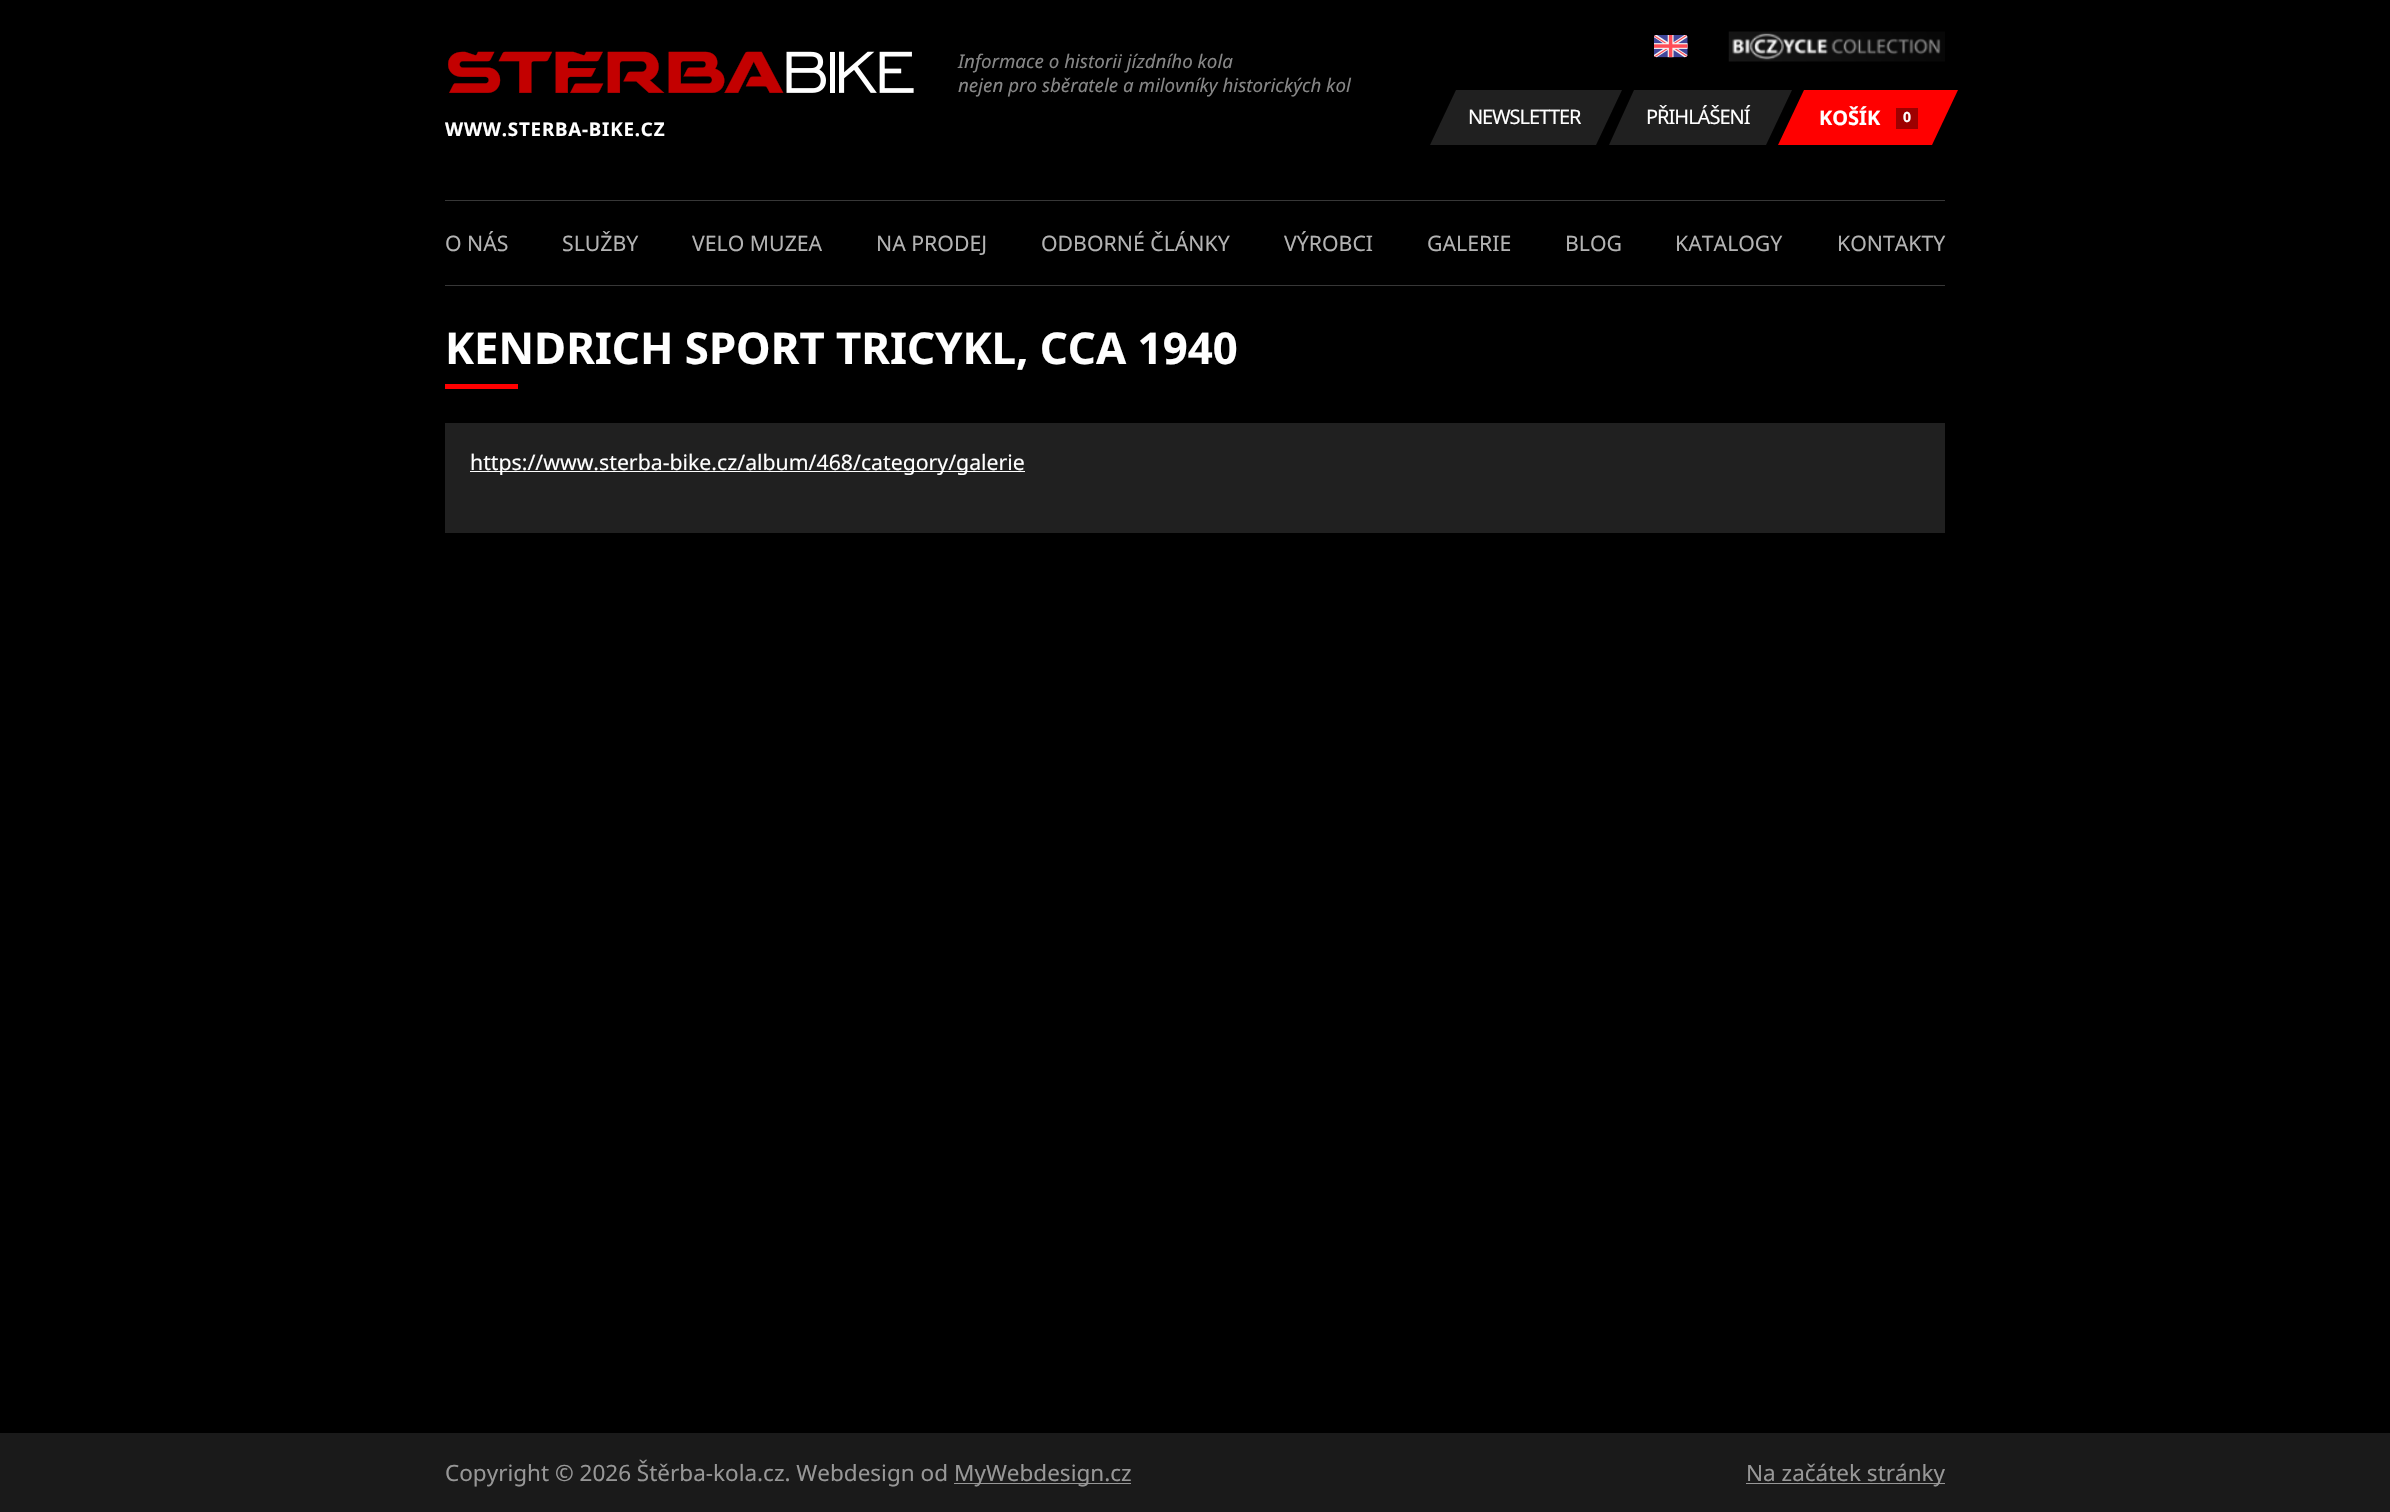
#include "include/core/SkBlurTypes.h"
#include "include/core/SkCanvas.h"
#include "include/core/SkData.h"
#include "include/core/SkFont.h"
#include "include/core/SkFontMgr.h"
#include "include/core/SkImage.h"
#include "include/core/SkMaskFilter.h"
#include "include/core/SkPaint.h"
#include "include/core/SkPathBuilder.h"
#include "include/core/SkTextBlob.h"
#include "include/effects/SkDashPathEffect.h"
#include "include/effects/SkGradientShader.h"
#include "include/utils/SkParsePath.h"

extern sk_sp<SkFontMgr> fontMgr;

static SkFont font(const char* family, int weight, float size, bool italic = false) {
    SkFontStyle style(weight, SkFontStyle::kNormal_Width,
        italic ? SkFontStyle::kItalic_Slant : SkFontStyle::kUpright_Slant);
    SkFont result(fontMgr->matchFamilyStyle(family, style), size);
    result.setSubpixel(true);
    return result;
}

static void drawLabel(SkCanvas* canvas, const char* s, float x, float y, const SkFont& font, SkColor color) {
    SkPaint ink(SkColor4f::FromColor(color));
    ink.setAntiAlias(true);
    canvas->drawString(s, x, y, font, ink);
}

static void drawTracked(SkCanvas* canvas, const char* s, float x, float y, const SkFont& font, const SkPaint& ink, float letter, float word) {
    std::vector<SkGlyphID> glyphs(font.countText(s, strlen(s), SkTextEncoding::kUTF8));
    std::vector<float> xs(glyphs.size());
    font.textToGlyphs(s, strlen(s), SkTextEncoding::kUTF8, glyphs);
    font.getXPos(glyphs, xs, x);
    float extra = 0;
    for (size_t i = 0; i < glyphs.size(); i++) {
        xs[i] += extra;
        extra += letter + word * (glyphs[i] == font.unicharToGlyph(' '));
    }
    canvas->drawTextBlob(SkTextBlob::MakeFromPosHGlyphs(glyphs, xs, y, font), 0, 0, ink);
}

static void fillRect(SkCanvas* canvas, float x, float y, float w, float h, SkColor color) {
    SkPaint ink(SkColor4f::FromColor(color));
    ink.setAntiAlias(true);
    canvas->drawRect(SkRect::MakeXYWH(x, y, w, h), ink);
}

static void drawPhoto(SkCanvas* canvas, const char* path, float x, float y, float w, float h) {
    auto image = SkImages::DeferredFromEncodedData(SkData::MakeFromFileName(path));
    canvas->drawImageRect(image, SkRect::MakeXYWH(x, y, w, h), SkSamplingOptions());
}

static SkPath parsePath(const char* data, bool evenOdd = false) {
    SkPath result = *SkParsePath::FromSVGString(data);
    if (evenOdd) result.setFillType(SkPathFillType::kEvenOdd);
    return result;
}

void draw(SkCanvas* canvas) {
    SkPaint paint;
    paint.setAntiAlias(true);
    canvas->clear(0xFF000000);
    SkFont font1 = font("Noto Sans", 400, 18.75f, true);
    drawLabel(canvas, "Informace o historii jízdního kola", 958, 68, font1, 0xFF878787);
    drawLabel(canvas, "nejen pro sběratele a milovníky historických kol", 958, 92, font1, 0xFF878787);
    drawPhoto(canvas, "assets/img1.png", 448, 51, 466, 42);
    SkFont font2 = font("Noto Sans", 700, 18.75f);
    paint.setColor(0xFFFFFFFF);
    drawTracked(canvas, "WWW.STERBA-BIKE.CZ", 445, 136, font2, paint, 0.8f, 0);
    drawPhoto(canvas, "assets/img2.png", 1654, 35, 34, 23);
    drawPhoto(canvas, "assets/img3.png", 1728, 31, 217, 31);
    paint.setColor(0xFF202020);
    canvas->drawPath(parsePath("M1456 90H1622L1596 145H1430Z"), paint);
    SkFont font3 = font("Noto Sans", 400, 20);
    paint.setColor(0xFFFFFFFF);
    drawTracked(canvas, "NEWSLETTER", 1468, 124, font3, paint, -1.1f, 0);
    paint.setColor(0xFF202020);
    canvas->drawPath(parsePath("M1634 90H1792L1766 145H1609Z"), paint);
    paint.setColor(0xFFFFFFFF);
    drawTracked(canvas, "PŘIHLÁŠENÍ", 1646, 124, font3, paint, -1, 0);
    paint.setColor(0xFFFF0000);
    canvas->drawPath(parsePath("M1804 90H1958L1932 145H1778Z"), paint);
    SkFont font4 = font("Noto Sans", 700, 20);
    drawLabel(canvas, "KOŠÍK", 1819, 125, font4, 0xFFFFFFFF);
    fillRect(canvas, 1896, 108, 22, 21, 0xFF9E0000);
    SkFont font5 = font("Noto Sans", 700, 14);
    drawLabel(canvas, "0", 1903, 122, font5, 0xFFFFFFFF);
    fillRect(canvas, 445, 200, 1500, 1, 0xFF373737);
    fillRect(canvas, 445, 285, 1500, 1, 0xFF373737);
    SkFont font6 = font("Noto Sans", 400, 21.25f);
    drawLabel(canvas, "O NÁS", 445, 251, font6, 0xFFB3B3B3);
    drawLabel(canvas, "SLUŽBY", 562, 251, font6, 0xFFB3B3B3);
    drawLabel(canvas, "VELO MUZEA", 692, 251, font6, 0xFFB3B3B3);
    drawLabel(canvas, "NA PRODEJ", 876, 251, font6, 0xFFB3B3B3);
    drawLabel(canvas, "ODBORNÉ ČLÁNKY", 1041, 251, font6, 0xFFB3B3B3);
    drawLabel(canvas, "VÝROBCI", 1284, 251, font6, 0xFFB3B3B3);
    drawLabel(canvas, "GALERIE", 1427, 251, font6, 0xFFB3B3B3);
    drawLabel(canvas, "BLOG", 1565, 251, font6, 0xFFB3B3B3);
    drawLabel(canvas, "KATALOGY", 1675, 251, font6, 0xFFB3B3B3);
    drawLabel(canvas, "KONTAKTY", 1837, 251, font6, 0xFFB3B3B3);
    SkFont font7 = font("Noto Sans", 700, 43.75f);
    drawLabel(canvas, "KENDRICH SPORT TRICYKL, CCA 1940", 445, 364, font7, 0xFFFFFFFF);
    fillRect(canvas, 445, 384, 73, 5, 0xFFFF0000);
    fillRect(canvas, 445, 423, 1500, 110, 0xFF202020);
    fillRect(canvas, 470, 471, 555, 1, 0xFFFFFFFF);
    drawLabel(canvas, "https://www.sterba-bike.cz/album/468/category/galerie", 470, 470, font6, 0xFFFFFFFF);
    fillRect(canvas, 0, 1433, 2390, 79, 0xFF1A1A1A);
    SkFont font8 = font("Noto Sans", 400, 22.5f);
    drawLabel(canvas, "Copyright © 2026 Štěrba-kola.cz. Webdesign od", 445, 1481, font8, 0xFF979797);
    fillRect(canvas, 954, 1483, 177, 1, 0xFF979797);
    drawLabel(canvas, "MyWebdesign.cz", 954, 1481, font8, 0xFF979797);
    fillRect(canvas, 1746, 1483, 199, 1, 0xFF979797);
    drawLabel(canvas, "Na začátek stránky", 1746, 1481, font8, 0xFF979797);
}
